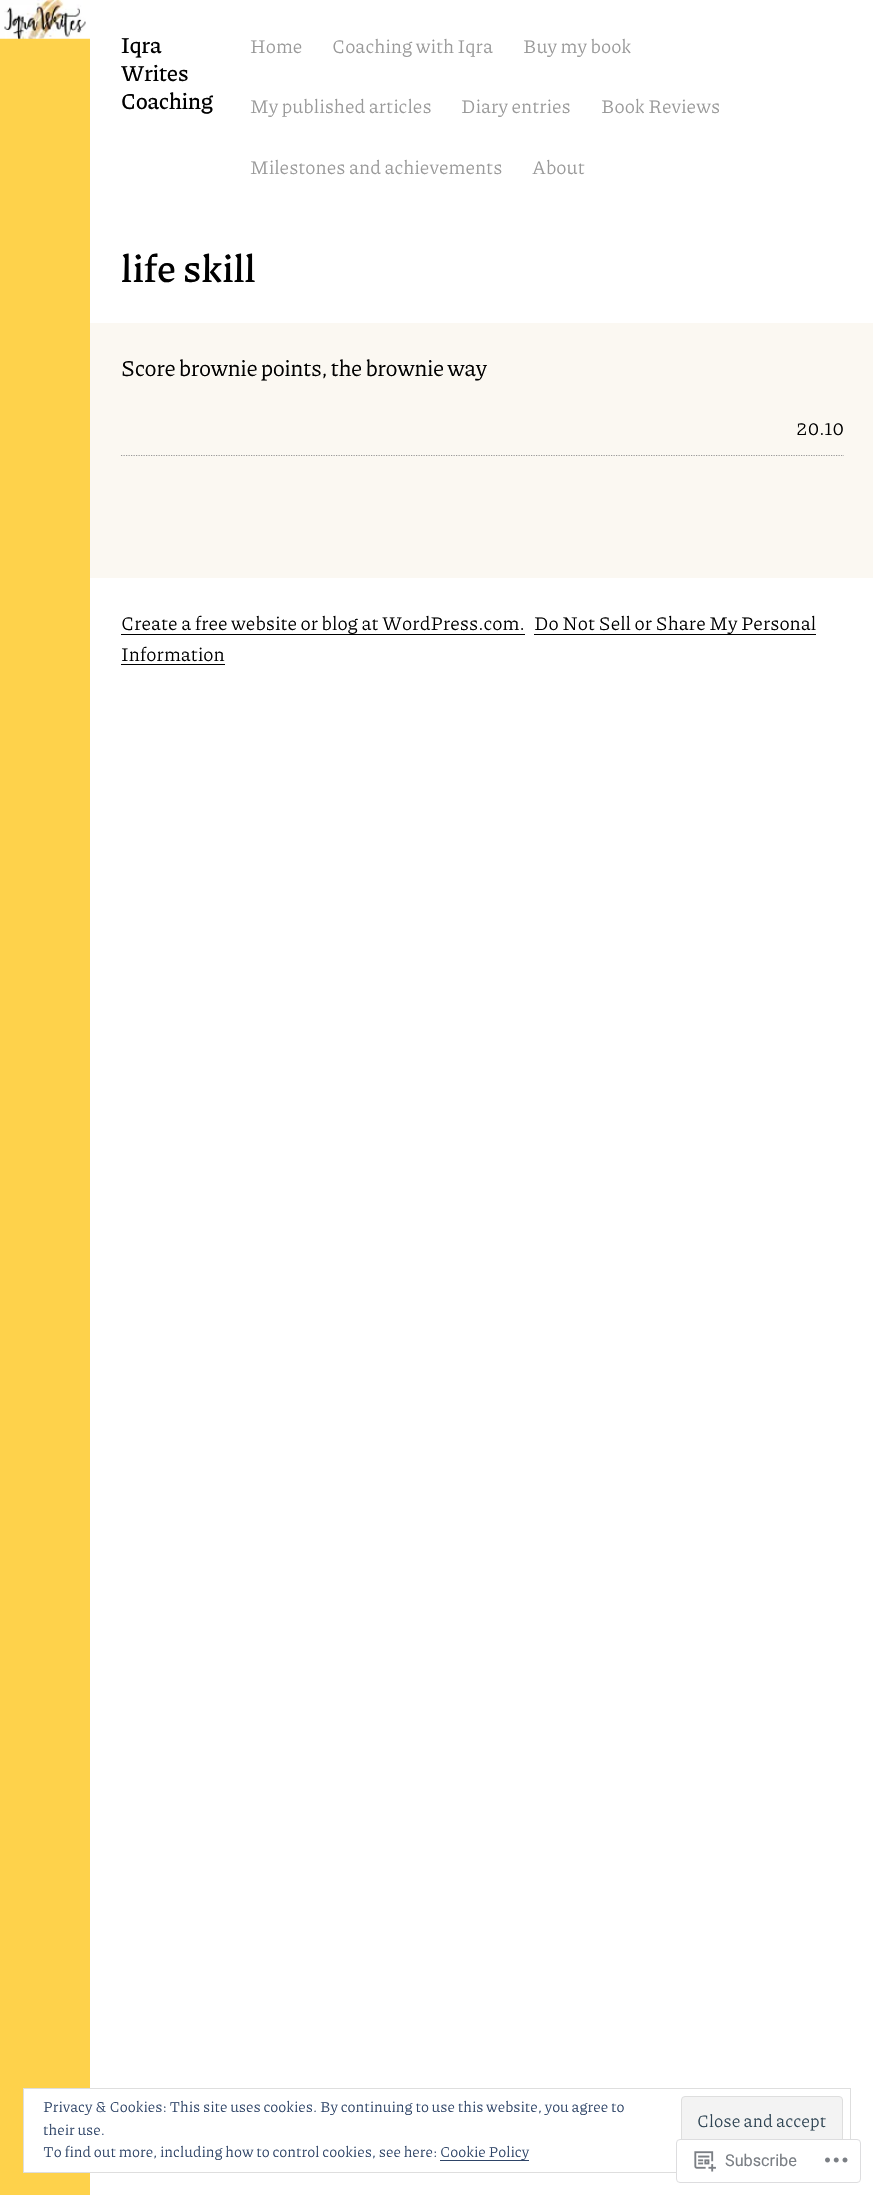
#include "include/core/SkBlurTypes.h"
#include "include/core/SkCanvas.h"
#include "include/core/SkData.h"
#include "include/core/SkFont.h"
#include "include/core/SkFontMgr.h"
#include "include/core/SkImage.h"
#include "include/core/SkMaskFilter.h"
#include "include/core/SkPaint.h"
#include "include/core/SkPathBuilder.h"
#include "include/core/SkTextBlob.h"
#include "include/effects/SkDashPathEffect.h"
#include "include/effects/SkGradientShader.h"
#include "include/utils/SkParsePath.h"

extern sk_sp<SkFontMgr> fontMgr;

static SkFont font(const char* family, int weight, float size, bool italic = false) {
    SkFontStyle style(weight, SkFontStyle::kNormal_Width,
        italic ? SkFontStyle::kItalic_Slant : SkFontStyle::kUpright_Slant);
    SkFont result(fontMgr->matchFamilyStyle(family, style), size);
    result.setSubpixel(true);
    return result;
}

static void drawLabel(SkCanvas* canvas, const char* s, float x, float y, const SkFont& font, SkColor color) {
    SkPaint ink(SkColor4f::FromColor(color));
    ink.setAntiAlias(true);
    canvas->drawString(s, x, y, font, ink);
}

static void fillRect(SkCanvas* canvas, float x, float y, float w, float h, SkColor color) {
    SkPaint ink(SkColor4f::FromColor(color));
    ink.setAntiAlias(true);
    canvas->drawRect(SkRect::MakeXYWH(x, y, w, h), ink);
}

static void drawPhoto(SkCanvas* canvas, const char* path, float x, float y, float w, float h) {
    auto image = SkImages::DeferredFromEncodedData(SkData::MakeFromFileName(path));
    canvas->drawImageRect(image, SkRect::MakeXYWH(x, y, w, h), SkSamplingOptions());
}

static SkPath parsePath(const char* data, bool evenOdd = false) {
    SkPath result = *SkParsePath::FromSVGString(data);
    if (evenOdd) result.setFillType(SkPathFillType::kEvenOdd);
    return result;
}

void draw(SkCanvas* canvas) {
    SkPaint paint;
    paint.setAntiAlias(true);
    canvas->clear(0xFFFFFFFF);
    fillRect(canvas, 0, 38, 90, 2157, 0xFFFED24B);
    drawPhoto(canvas, "assets/img1.png", 0, 0, 90, 39);
    SkFont font1 = font("Piazzolla", 500, 22.75f);
    drawLabel(canvas, "Iqra", 121, 53, font1, 0xFF000000);
    drawLabel(canvas, "Writes", 121, 81, font1, 0xFF000000);
    drawLabel(canvas, "Coaching", 121, 109, font1, 0xFF000000);
    SkFont font2 = font("Piazzolla", 300, 19.15f);
    drawLabel(canvas, "Home", 250, 53, font2, 0xFF999999);
    drawLabel(canvas, "Coaching with Iqra", 332, 53, font2, 0xFF999999);
    drawLabel(canvas, "Buy my book", 523, 53, font2, 0xFF999999);
    drawLabel(canvas, "My published articles", 250, 113, font2, 0xFF999999);
    drawLabel(canvas, "Diary entries", 461, 113, font2, 0xFF999999);
    drawLabel(canvas, "Book Reviews", 601, 113, font2, 0xFF999999);
    drawLabel(canvas, "Milestones and achievements", 250, 174, font2, 0xFF999999);
    drawLabel(canvas, "About", 532, 174, font2, 0xFF999999);
    SkFont font3 = font("Piazzolla", 600, 38);
    drawLabel(canvas, "life skill", 121, 282, font3, 0xFF000000);
    fillRect(canvas, 90, 323, 783, 255, 0xFFFBF8F2);
    paint.setStroke(true);
    paint.setStrokeWidth(1.2f);
    paint.setColor(0xFF999999);
    paint.setPathEffect(SkDashPathEffect::Make({{1.25f, 1.25f}}, 0));
    canvas->drawPath(parsePath("M121 455.5H844"), paint);
    paint.setPathEffect(nullptr);
    SkFont font4 = font("Piazzolla", 400, 22.75f);
    drawLabel(canvas, "Score brownie points, the brownie way", 121, 376, font4, 0xFF000000);
    drawLabel(canvas, "20.10", 796, 435, font2, 0xFF000000);
    drawLabel(canvas, "Create a free website or blog at WordPress.com.", 121, 630, font2, 0xFF000000);
    fillRect(canvas, 121, 634, 404, 1, 0xFF000000);
    drawLabel(canvas, "Do Not Sell or Share My Personal", 534, 630, font2, 0xFF000000);
    fillRect(canvas, 534, 634, 282, 1, 0xFF000000);
    drawLabel(canvas, "Information", 121, 661, font2, 0xFF000000);
    fillRect(canvas, 121, 664, 104, 1, 0xFF000000);
    fillRect(canvas, 24, 2089, 66, 83, 0xFFFFFFFF);
    paint.setStrokeWidth(1);
    paint.setColor(0xFFDEDEDE);
    canvas->drawRect(SkRect::MakeXYWH(23.5f, 2088.5f, 827, 84), paint);
    SkFont font5 = font("Piazzolla", 300, 15);
    drawLabel(canvas, "Privacy & Cookies: This site uses cookies. By continuing to use this website, you agree to", 43, 2112, font5, 0xFF2E4467);
    drawLabel(canvas, "their use.", 43, 2135, font5, 0xFF2E4467);
    paint.setStroke(false);
    paint.setColor(0xFFF3F3F3);
    canvas->drawRoundRect(SkRect::MakeXYWH(681.5f, 2096.5f, 161, 48), 3.5f, 3.5f, paint);
    paint.setStroke(true);
    paint.setColor(0xFFDEDEDE);
    canvas->drawRoundRect(SkRect::MakeXYWH(681.5f, 2096.5f, 161, 48), 3.5f, 3.5f, paint);
    SkFont font6 = font("Piazzolla", 300, 17.5f);
    drawLabel(canvas, "Close and accept", 697, 2127, font6, 0xFF2E4453);
    drawLabel(canvas, "To find out more, including how to control cookies, see here:", 43, 2157, font5, 0xFF2E4467);
    fillRect(canvas, 440, 2160, 89, 1, 0xFF2E4467);
    drawLabel(canvas, "Cookie Policy", 440, 2157, font5, 0xFF2E4467);
    paint.setStroke(false);
    paint.setColor(0xFAFFFFFF);
    canvas->drawRoundRect(SkRect::MakeXYWH(676.5f, 2139.5f, 184, 43), 3.5f, 3.5f, paint);
    paint.setStroke(true);
    paint.setColor(0xFFDDDDDF);
    canvas->drawRoundRect(SkRect::MakeXYWH(676.5f, 2139.5f, 184, 43), 3.5f, 3.5f, paint);
    drawPhoto(canvas, "assets/img2.png", 694, 2151, 22, 21);
    SkFont font7 = font("Roboto", 400, 16.25f);
    drawLabel(canvas, "Subscribe", 725, 2166, font7, 0xFF7B7F85);
    drawPhoto(canvas, "assets/img3.png", 825, 2157, 23, 6);
}
